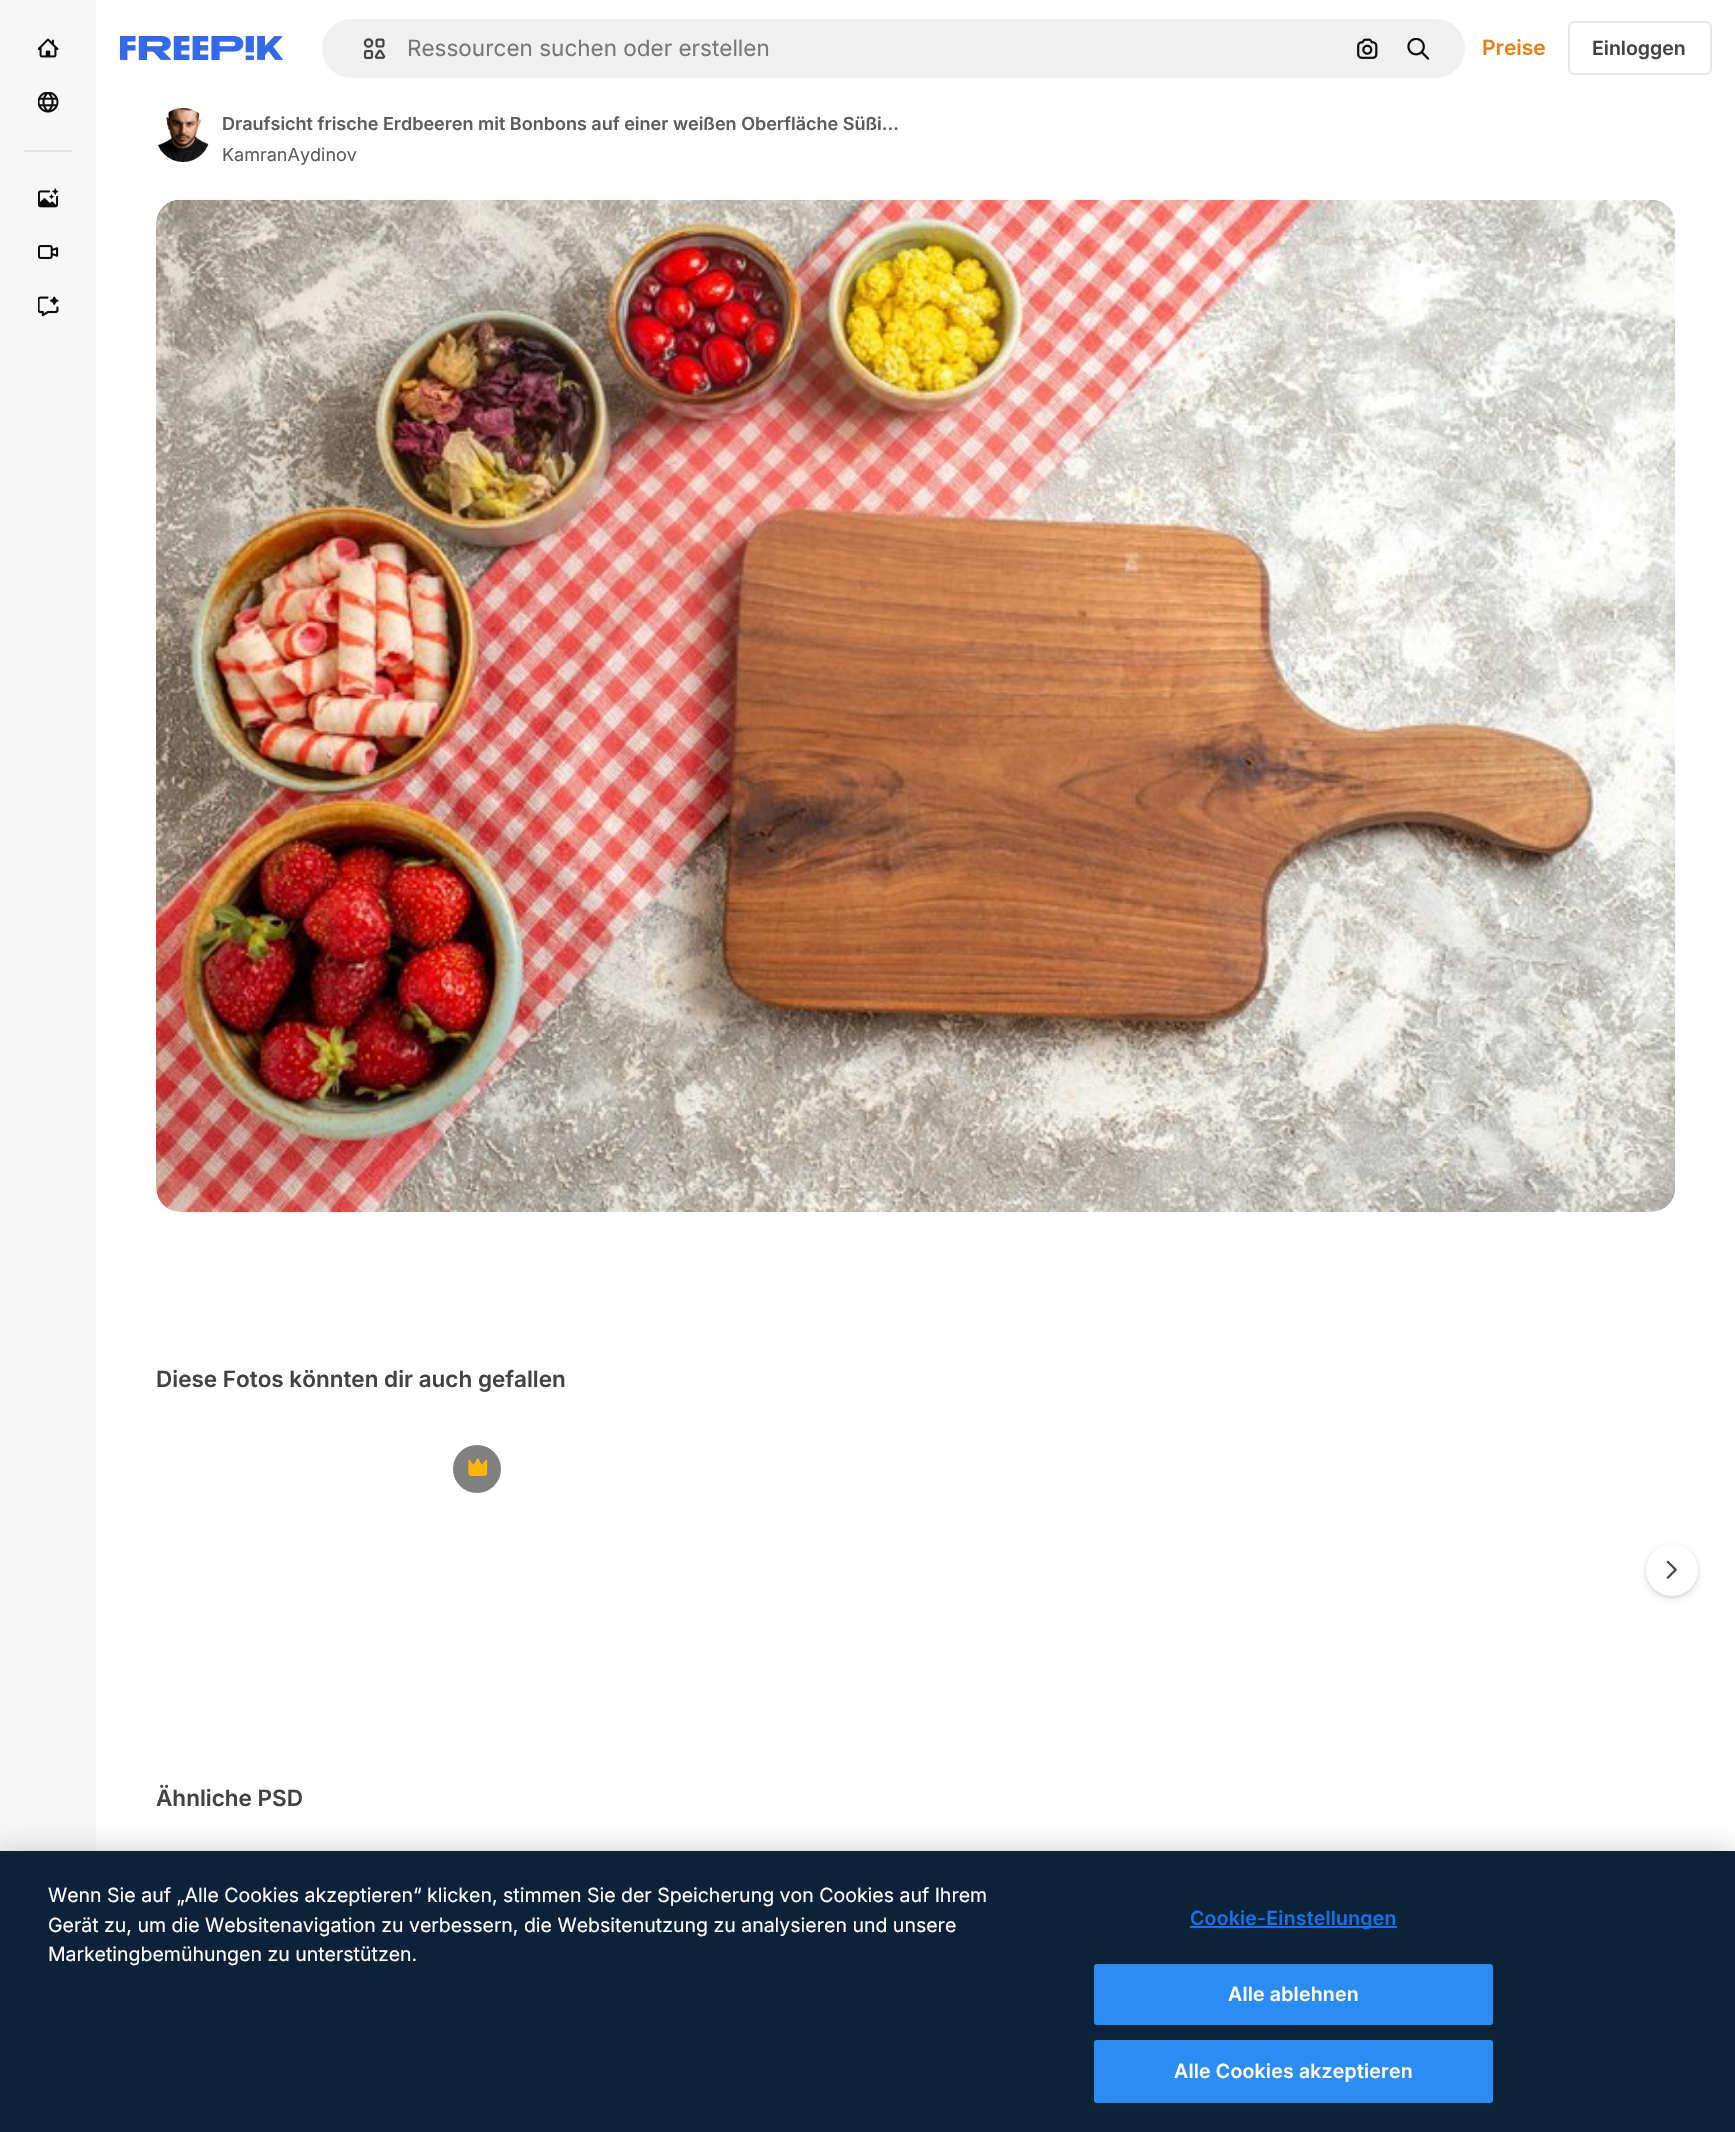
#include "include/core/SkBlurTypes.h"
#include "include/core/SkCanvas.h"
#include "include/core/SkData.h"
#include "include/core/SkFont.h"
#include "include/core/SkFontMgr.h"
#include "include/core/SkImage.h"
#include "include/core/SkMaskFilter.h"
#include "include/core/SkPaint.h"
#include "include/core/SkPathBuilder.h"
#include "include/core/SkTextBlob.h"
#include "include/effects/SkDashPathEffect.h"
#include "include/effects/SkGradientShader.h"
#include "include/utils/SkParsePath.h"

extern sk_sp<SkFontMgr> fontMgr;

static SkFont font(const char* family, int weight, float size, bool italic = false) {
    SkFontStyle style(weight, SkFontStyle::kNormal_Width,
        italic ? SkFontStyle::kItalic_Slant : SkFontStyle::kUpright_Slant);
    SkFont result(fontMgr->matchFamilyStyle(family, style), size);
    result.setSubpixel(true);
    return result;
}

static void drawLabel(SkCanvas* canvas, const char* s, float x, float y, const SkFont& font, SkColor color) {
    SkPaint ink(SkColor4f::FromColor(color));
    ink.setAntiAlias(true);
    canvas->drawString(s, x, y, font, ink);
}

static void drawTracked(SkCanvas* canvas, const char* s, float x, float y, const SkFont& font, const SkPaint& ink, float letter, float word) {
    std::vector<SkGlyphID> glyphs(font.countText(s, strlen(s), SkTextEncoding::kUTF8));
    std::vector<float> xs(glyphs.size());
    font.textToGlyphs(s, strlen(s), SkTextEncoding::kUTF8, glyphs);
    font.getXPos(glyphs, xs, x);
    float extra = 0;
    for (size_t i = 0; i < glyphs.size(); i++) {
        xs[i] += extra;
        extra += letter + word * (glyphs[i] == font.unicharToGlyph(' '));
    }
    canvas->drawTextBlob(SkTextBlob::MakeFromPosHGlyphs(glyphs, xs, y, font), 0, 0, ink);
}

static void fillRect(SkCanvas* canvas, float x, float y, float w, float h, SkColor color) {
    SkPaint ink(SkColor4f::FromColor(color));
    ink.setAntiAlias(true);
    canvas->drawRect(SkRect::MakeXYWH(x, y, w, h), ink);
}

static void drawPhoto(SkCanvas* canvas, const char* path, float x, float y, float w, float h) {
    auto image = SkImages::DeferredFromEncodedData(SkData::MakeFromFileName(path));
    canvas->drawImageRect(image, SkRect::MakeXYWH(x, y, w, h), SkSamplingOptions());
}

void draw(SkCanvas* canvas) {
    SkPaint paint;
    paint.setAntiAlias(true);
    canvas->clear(0xFFFFFFFF);
    fillRect(canvas, 0, 0, 96, 1851, 0xFFF7F7F7);
    drawPhoto(canvas, "assets/img1.png", 38, 38, 21, 20);
    drawPhoto(canvas, "assets/img2.png", 38, 92, 21, 21);
    fillRect(canvas, 24, 150, 48, 2, 0xFFE0E0E0);
    drawPhoto(canvas, "assets/img3.png", 38, 188, 21, 20);
    drawPhoto(canvas, "assets/img4.png", 38, 245, 21, 14);
    drawPhoto(canvas, "assets/img5.png", 38, 296, 21, 21);
    drawPhoto(canvas, "assets/img6.png", 120, 36, 163, 24);
    paint.setColor(0xFFF0F0F0);
    canvas->drawRoundRect(SkRect::MakeXYWH(321, 18, 1145, 61), 30.5f, 30.5f, paint);
    paint.setStroke(true);
    paint.setStrokeWidth(2);
    paint.setColor(0xFFFFFFFF);
    canvas->drawRoundRect(SkRect::MakeXYWH(321, 18, 1145, 61), 30.5f, 30.5f, paint);
    drawPhoto(canvas, "assets/img7.png", 363, 38, 23, 21);
    SkFont font1 = font("Inter", 400, 22.5f);
    drawLabel(canvas, "Ressourcen suchen oder erstellen", 407, 56, font1, 0xFF777777);
    drawPhoto(canvas, "assets/img8.png", 1357, 38, 21, 21);
    drawPhoto(canvas, "assets/img9.png", 1407, 38, 23, 22);
    SkFont font2 = font("Inter", 600, 21);
    drawLabel(canvas, "Preise", 1482, 55, font2, 0xFFEA7E11);
    paint.setColor(0xFFE7E7E7);
    canvas->drawRoundRect(SkRect::MakeXYWH(1569, 22, 142, 52), 5, 5, paint);
    SkFont font3 = font("Inter", 600, 19.5f);
    drawLabel(canvas, "Einloggen", 1592, 55, font3, 0xFF424242);
    drawPhoto(canvas, "assets/img10.png", 158, 108, 51, 54);
    SkFont font4 = font("Inter", 600, 18);
    drawLabel(canvas, "Draufsicht frische Erdbeeren mit Bonbons auf einer weißen Oberfläche Süßi…", 222, 130, font4, 0xFF5C5C5C);
    SkFont font5 = font("Inter", 400, 18);
    drawLabel(canvas, "KamranAydinov", 222, 161, font5, 0xFF5C5C5C);
    drawPhoto(canvas, "assets/img11.png", 156, 199, 1520, 1013);
    SkFont font6 = font("Inter", 600, 22.5f);
    drawLabel(canvas, "Diese Fotos könnten dir auch gefallen", 156, 1387, font6, 0xFF424242);
    paint.setStroke(false);
    paint.setColor(0xFF808080);
    canvas->drawCircle(477, 1469, 24, paint);
    drawPhoto(canvas, "assets/img12.png", 468, 1458, 20, 18);
    paint.setColor(0x26374957);
    paint.setMaskFilter(SkMaskFilter::MakeBlur(kNormal_SkBlurStyle, 4));
    canvas->drawRoundRect(SkRect::MakeXYWH(1646, 1547, 52, 52), 26, 26, paint);
    paint.setMaskFilter(nullptr);
    paint.setColor(0x1A374957);
    paint.setMaskFilter(SkMaskFilter::MakeBlur(kNormal_SkBlurStyle, 1.5f));
    canvas->drawRoundRect(SkRect::MakeXYWH(1646, 1545, 52, 53), 26, 26, paint);
    paint.setMaskFilter(nullptr);
    paint.setColor(0xFFFFFFFF);
    canvas->drawCircle(1672, 1570, 26, paint);
    drawPhoto(canvas, "assets/img13.png", 1666, 1560, 11, 19);
    drawLabel(canvas, "Ähnliche PSD", 156, 1806, font6, 0xFF424242);
    paint.setColor(0x33000000);
    paint.setMaskFilter(SkMaskFilter::MakeBlur(kNormal_SkBlurStyle, 13.5f));
    canvas->drawRect(SkRect::MakeXYWH(0, 1851, 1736, 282), paint);
    paint.setMaskFilter(nullptr);
    fillRect(canvas, 0, 1851, 1735, 281, 0xFF0B2239);
    SkFont font7 = font("Inter", 400, 19.5f);
    drawLabel(canvas, "Wenn Sie auf „Alle Cookies akzeptieren“ klicken, stimmen Sie der Speicherung von Cookies auf Ihrem", 48, 1902, font7, 0xFFFFFFFF);
    drawLabel(canvas, "Gerät zu, um die Websitenavigation zu verbessern, die Websitenutzung zu analysieren und unsere", 48, 1932, font7, 0xFFFFFFFF);
    drawLabel(canvas, "Marketingbemühungen zu unterstützen.", 48, 1961, font7, 0xFFFFFFFF);
    fillRect(canvas, 1190, 1926, 207, 2, 0xFF1273EB);
    paint.setColor(0xFF1273EB);
    drawTracked(canvas, "Cookie-Einstellungen", 1190, 1925, font3, paint, 0.2f, 0);
    paint.setColor(0xFF2C8CF4);
    canvas->drawRoundRect(SkRect::MakeXYWH(1095, 1965, 397, 59), 2, 2, paint);
    paint.setStroke(true);
    canvas->drawRoundRect(SkRect::MakeXYWH(1095, 1965, 397, 59), 2, 2, paint);
    paint.setStroke(false);
    paint.setColor(0xFFFFFFFF);
    drawTracked(canvas, "Alle ablehnen", 1228, 2001, font3, paint, 0.2f, 0);
    paint.setColor(0xFF2C8CF4);
    canvas->drawRoundRect(SkRect::MakeXYWH(1095, 2041, 397, 61), 2, 2, paint);
    paint.setStroke(true);
    canvas->drawRoundRect(SkRect::MakeXYWH(1095, 2041, 397, 61), 2, 2, paint);
    paint.setStroke(false);
    paint.setColor(0xFFFFFFFF);
    drawTracked(canvas, "Alle Cookies akzeptieren", 1174, 2078, font3, paint, 0.2f, 0);
}
